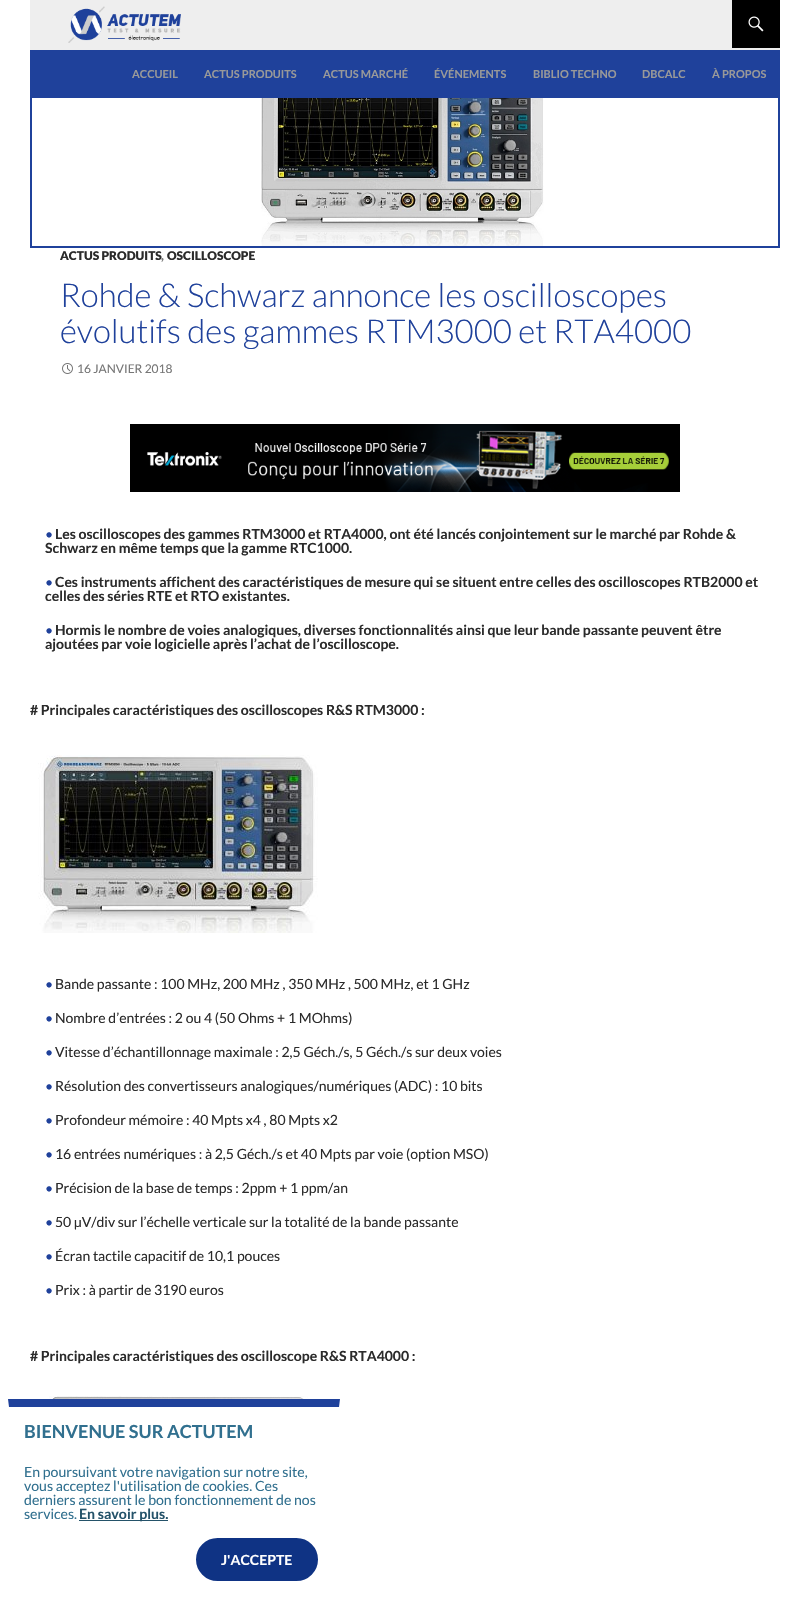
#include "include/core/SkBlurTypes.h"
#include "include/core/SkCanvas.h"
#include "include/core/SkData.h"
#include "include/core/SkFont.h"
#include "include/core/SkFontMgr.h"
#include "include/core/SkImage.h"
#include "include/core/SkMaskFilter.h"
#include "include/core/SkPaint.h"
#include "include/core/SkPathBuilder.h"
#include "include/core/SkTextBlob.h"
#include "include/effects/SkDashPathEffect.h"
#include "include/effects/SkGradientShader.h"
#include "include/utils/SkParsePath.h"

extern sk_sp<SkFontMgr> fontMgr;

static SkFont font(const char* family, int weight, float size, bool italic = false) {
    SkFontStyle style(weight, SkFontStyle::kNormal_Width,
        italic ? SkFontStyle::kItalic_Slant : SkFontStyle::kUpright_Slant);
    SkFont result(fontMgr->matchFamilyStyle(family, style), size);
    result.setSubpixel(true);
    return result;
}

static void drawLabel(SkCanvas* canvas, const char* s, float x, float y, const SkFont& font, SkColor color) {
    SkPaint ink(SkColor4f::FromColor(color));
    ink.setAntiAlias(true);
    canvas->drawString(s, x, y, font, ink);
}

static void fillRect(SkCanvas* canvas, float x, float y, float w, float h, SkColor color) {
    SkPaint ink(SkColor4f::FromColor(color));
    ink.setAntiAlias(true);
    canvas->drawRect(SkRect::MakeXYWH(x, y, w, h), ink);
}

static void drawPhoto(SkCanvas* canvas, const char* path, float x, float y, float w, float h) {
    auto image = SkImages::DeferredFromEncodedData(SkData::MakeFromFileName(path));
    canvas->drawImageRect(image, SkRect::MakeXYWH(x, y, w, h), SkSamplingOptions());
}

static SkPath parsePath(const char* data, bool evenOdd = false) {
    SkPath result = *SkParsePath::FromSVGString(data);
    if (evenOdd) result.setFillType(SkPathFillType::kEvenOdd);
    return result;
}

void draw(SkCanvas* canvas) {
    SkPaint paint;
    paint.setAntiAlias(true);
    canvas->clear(0xFFFFFFFF);
    drawPhoto(canvas, "assets/img3.png", 261, 98, 283, 148);
    paint.setStroke(true);
    paint.setStrokeWidth(2);
    paint.setColor(0xFF1F419B);
    canvas->drawRect(SkRect::MakeXYWH(31, 49, 748, 198), paint);
    fillRect(canvas, 32, 50, 746, 48, 0xFF1F419B);
    fillRect(canvas, 30, 0, 750, 50, 0xFFEEEEEE);
    drawPhoto(canvas, "assets/img1.png", 68, 6, 113, 37);
    fillRect(canvas, 732, 0, 48, 48, 0xFF000000);
    drawPhoto(canvas, "assets/img2.png", 748, 16, 16, 16);
    SkFont font1 = font("Lato", 700, 11);
    drawLabel(canvas, "ACCUEIL", 132, 78, font1, 0xFF999999);
    drawLabel(canvas, "ACTUS PRODUITS", 204, 78, font1, 0xFF999999);
    drawLabel(canvas, "ACTUS MARCHÉ", 323, 78, font1, 0xFF999999);
    drawLabel(canvas, "ÉVÉNEMENTS", 434, 78, font1, 0xFF999999);
    drawLabel(canvas, "BIBLIO TECHNO", 533, 78, font1, 0xFF999999);
    drawLabel(canvas, "DBCALC", 642, 78, font1, 0xFF999999);
    drawLabel(canvas, "À PROPOS", 712, 78, font1, 0xFF999999);
    SkFont font2 = font("Lato", 900, 12);
    drawLabel(canvas, "ACTUS PRODUITS", 60, 260, font2, 0xFF2B2B2B);
    drawLabel(canvas, ",", 161, 260, font2, 0xFF767676);
    drawLabel(canvas, "OSCILLOSCOPE", 167, 260, font2, 0xFF2B2B2B);
    SkFont font3 = font("Lato", 300, 33);
    drawLabel(canvas, "Rohde & Schwarz annonce les oscilloscopes", 60, 307, font3, 0xFF1F419B);
    drawLabel(canvas, "évolutifs des gammes RTM3000 et RTA4000", 60, 343, font3, 0xFF1F419B);
    drawPhoto(canvas, "assets/img4.png", 62, 363, 11, 11);
    SkFont font4 = font("Lato", 400, 12);
    drawLabel(canvas, "16 JANVIER 2018", 77, 373, font4, 0xFF767676);
    drawPhoto(canvas, "assets/img5.png", 130, 424, 550, 68);
    SkFont font5 = font("Lato", 400, 14);
    drawLabel(canvas, "•", 45, 539, font5, 0xFF1F419B);
    SkFont font6 = font("Lato", 700, 14);
    drawLabel(canvas, "Les oscilloscopes des gammes RTM3000 et RTA4000, ont été lancés conjointement sur le marché par Rohde &", 55, 539, font6, 0xFF2B2B2B);
    drawLabel(canvas, "Schwarz en même temps que la gamme RTC1000.", 45, 553, font6, 0xFF2B2B2B);
    drawLabel(canvas, "•", 45, 587, font5, 0xFF1F419B);
    drawLabel(canvas, "Ces instruments affichent des caractéristiques de mesure qui se situent entre celles des oscilloscopes RTB2000 et", 55, 587, font6, 0xFF2B2B2B);
    drawLabel(canvas, "celles des séries RTE et RTO existantes.", 45, 601, font6, 0xFF2B2B2B);
    drawLabel(canvas, "•", 45, 635, font5, 0xFF1F419B);
    drawLabel(canvas, "Hormis le nombre de voies analogiques, diverses fonctionnalités ainsi que leur bande passante peuvent être", 55, 635, font6, 0xFF2B2B2B);
    drawLabel(canvas, "ajoutées par voie logicielle après l’achat de l’oscilloscope.", 45, 649, font6, 0xFF2B2B2B);
    drawLabel(canvas, "# Principales caractéristiques des oscilloscopes R&S RTM3000 :", 30, 715, font6, 0xFF2B2B2B);
    drawPhoto(canvas, "assets/img6.png", 38, 755, 280, 178);
    drawLabel(canvas, "•", 45, 989, font5, 0xFF1F419B);
    drawLabel(canvas, "Bande passante : 100 MHz, 200 MHz , 350 MHz , 500 MHz, et 1 GHz", 55, 989, font5, 0xFF2B2B2B);
    drawLabel(canvas, "•", 45, 1023, font5, 0xFF1F419B);
    drawLabel(canvas, "Nombre d’entrées : 2 ou 4 (50 Ohms + 1 MOhms)", 55, 1023, font5, 0xFF2B2B2B);
    drawLabel(canvas, "•", 45, 1057, font5, 0xFF1F419B);
    drawLabel(canvas, "Vitesse d’échantillonnage maximale : 2,5 Géch./s, 5 Géch./s sur deux voies", 55, 1057, font5, 0xFF2B2B2B);
    drawLabel(canvas, "•", 45, 1091, font5, 0xFF1F419B);
    drawLabel(canvas, "Résolution des convertisseurs analogiques/numériques (ADC) : 10 bits", 55, 1091, font5, 0xFF2B2B2B);
    drawLabel(canvas, "•", 45, 1125, font5, 0xFF1F419B);
    drawLabel(canvas, "Profondeur mémoire : 40 Mpts x4 , 80 Mpts x2", 55, 1125, font5, 0xFF2B2B2B);
    drawLabel(canvas, "•", 45, 1159, font5, 0xFF1F419B);
    drawLabel(canvas, "16 entrées numériques : à 2,5 Géch./s et 40 Mpts par voie (option MSO)", 55, 1159, font5, 0xFF2B2B2B);
    drawLabel(canvas, "•", 45, 1193, font5, 0xFF1F419B);
    drawLabel(canvas, "Précision de la base de temps : 2ppm + 1 ppm/an", 55, 1193, font5, 0xFF2B2B2B);
    drawLabel(canvas, "•", 45, 1227, font5, 0xFF1F419B);
    drawLabel(canvas, "50 µV/div sur l’échelle verticale sur la totalité de la bande passante", 55, 1227, font5, 0xFF2B2B2B);
    drawLabel(canvas, "•", 45, 1261, font5, 0xFF1F419B);
    drawLabel(canvas, "Écran tactile capacitif de 10,1 pouces", 55, 1261, font5, 0xFF2B2B2B);
    drawLabel(canvas, "•", 45, 1295, font5, 0xFF1F419B);
    drawLabel(canvas, "Prix : à partir de 3190 euros", 55, 1295, font5, 0xFF2B2B2B);
    drawLabel(canvas, "# Principales caractéristiques des oscilloscope R&S RTA4000 :", 30, 1361, font6, 0xFF2B2B2B);
    drawPhoto(canvas, "assets/img7.png", 43, 1396, 270, 3);
    paint.setStroke(false);
    canvas->drawPath(parsePath("M8 1399H340L339 1407H9Z"), paint);
    SkFont font7 = font("Lato", 700, 18);
    drawLabel(canvas, "BIENVENUE SUR ACTUTEM", 24, 1438, font7, 0xFF31708F);
    SkFont font8 = font("Lato", 400, 14.1f);
    drawLabel(canvas, "En poursuivant votre navigation sur notre site,", 24, 1477, font8, 0xFF31708F);
    drawLabel(canvas, "vous acceptez l'utilisation de cookies. Ces", 24, 1491, font8, 0xFF31708F);
    drawLabel(canvas, "derniers assurent le bon fonctionnement de nos", 24, 1505, font8, 0xFF31708F);
    drawLabel(canvas, "services.", 24, 1519, font8, 0xFF31708F);
    fillRect(canvas, 79, 1520, 89, 1, 0xFF245269);
    SkFont font9 = font("Lato", 700, 14.1f);
    drawLabel(canvas, "En savoir plus.", 79, 1519, font9, 0xFF245269);
    paint.setColor(0xFF0F3384);
    canvas->drawRoundRect(SkRect::MakeXYWH(195, 1537, 124, 45), 22.5f, 22.5f, paint);
    paint.setStroke(true);
    paint.setColor(0xFFFFFFFF);
    canvas->drawRoundRect(SkRect::MakeXYWH(195, 1537, 124, 45), 22.5f, 22.5f, paint);
    drawLabel(canvas, "J'ACCEPTE", 221, 1565, font6, 0xFFFFFFFF);
}
